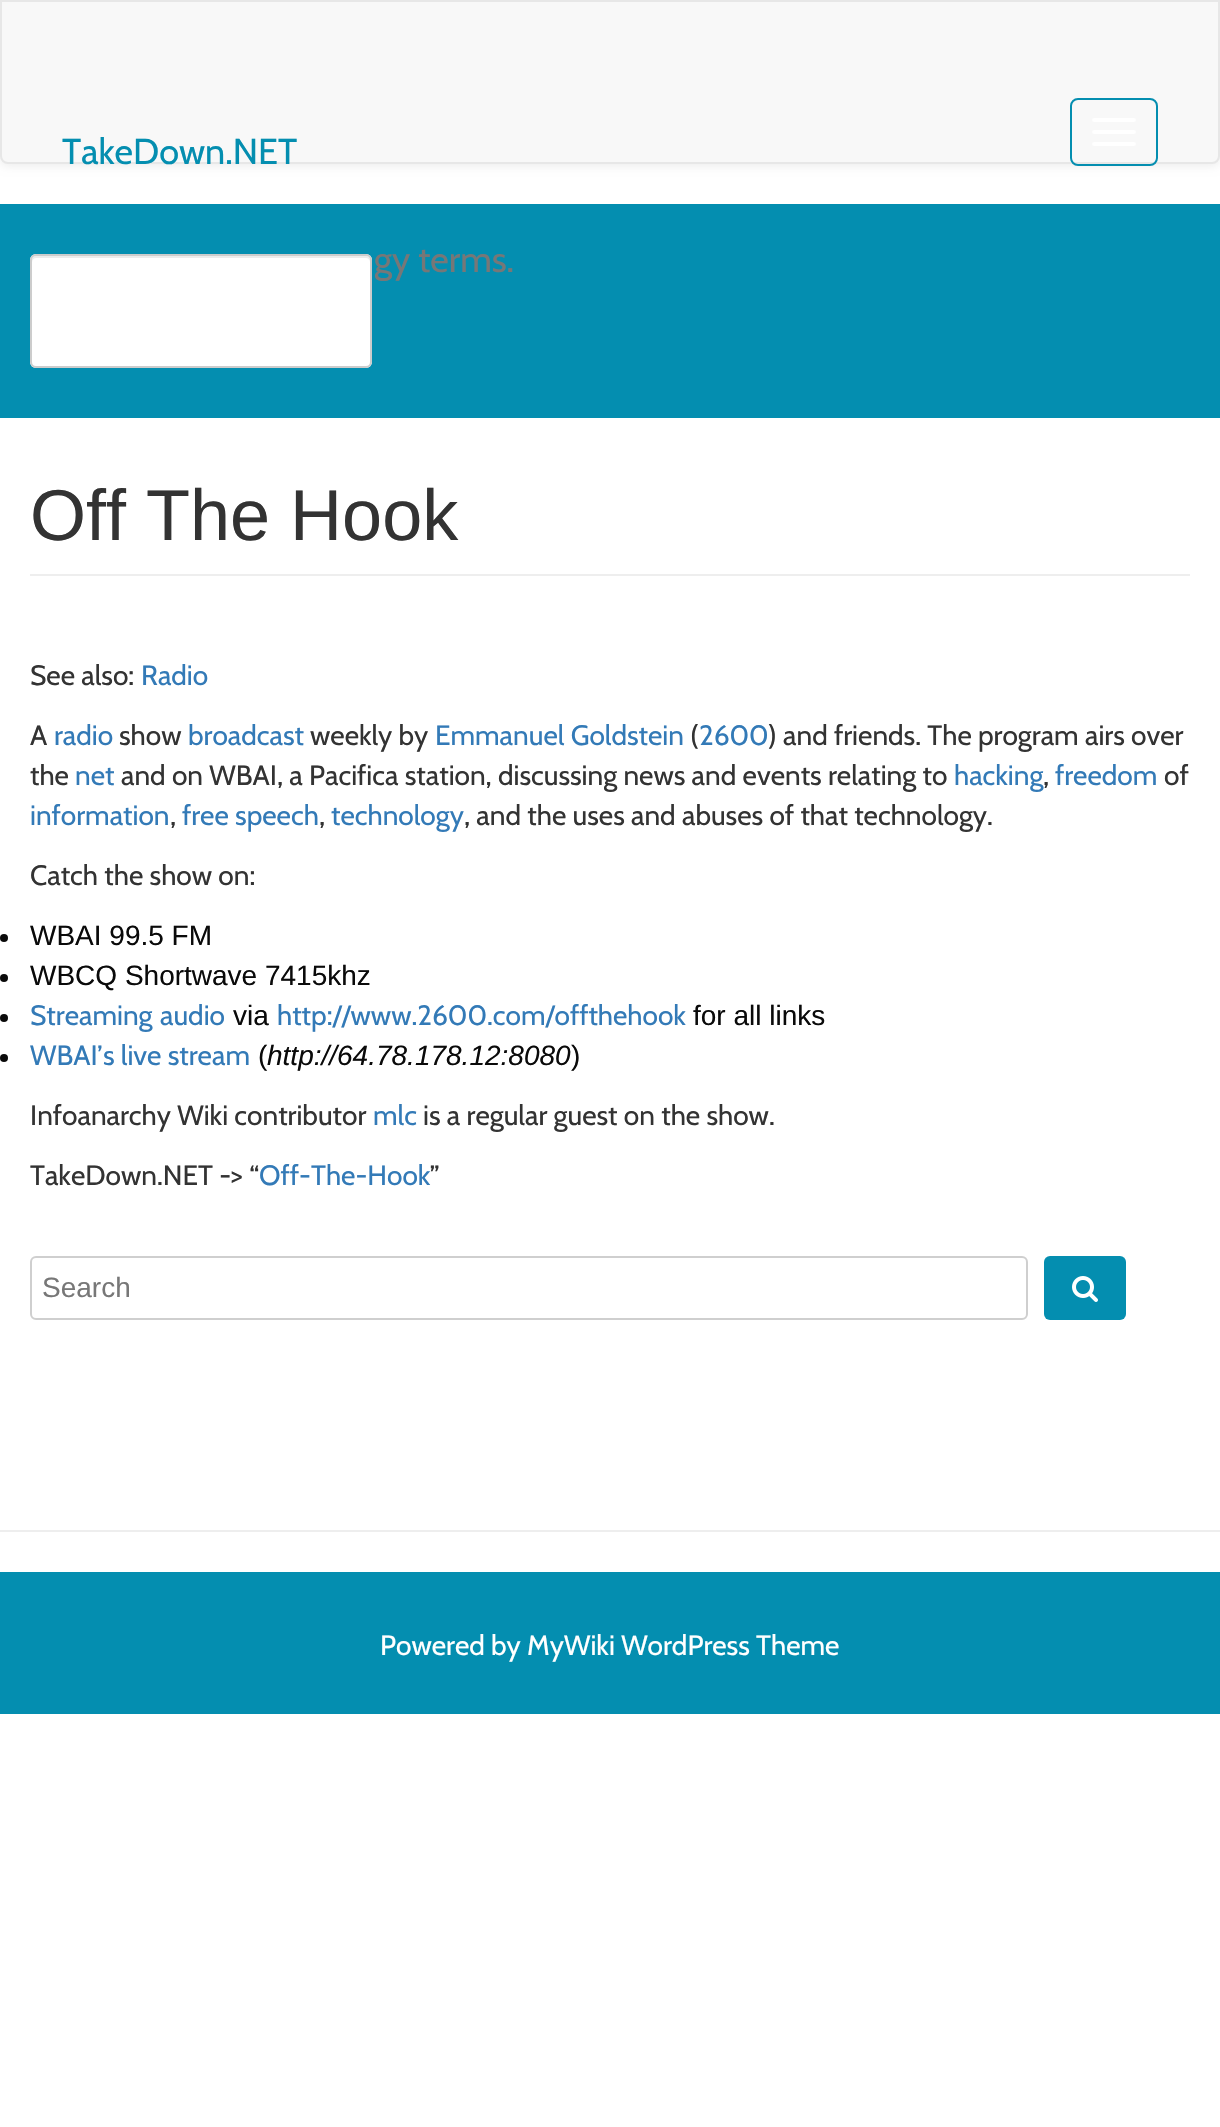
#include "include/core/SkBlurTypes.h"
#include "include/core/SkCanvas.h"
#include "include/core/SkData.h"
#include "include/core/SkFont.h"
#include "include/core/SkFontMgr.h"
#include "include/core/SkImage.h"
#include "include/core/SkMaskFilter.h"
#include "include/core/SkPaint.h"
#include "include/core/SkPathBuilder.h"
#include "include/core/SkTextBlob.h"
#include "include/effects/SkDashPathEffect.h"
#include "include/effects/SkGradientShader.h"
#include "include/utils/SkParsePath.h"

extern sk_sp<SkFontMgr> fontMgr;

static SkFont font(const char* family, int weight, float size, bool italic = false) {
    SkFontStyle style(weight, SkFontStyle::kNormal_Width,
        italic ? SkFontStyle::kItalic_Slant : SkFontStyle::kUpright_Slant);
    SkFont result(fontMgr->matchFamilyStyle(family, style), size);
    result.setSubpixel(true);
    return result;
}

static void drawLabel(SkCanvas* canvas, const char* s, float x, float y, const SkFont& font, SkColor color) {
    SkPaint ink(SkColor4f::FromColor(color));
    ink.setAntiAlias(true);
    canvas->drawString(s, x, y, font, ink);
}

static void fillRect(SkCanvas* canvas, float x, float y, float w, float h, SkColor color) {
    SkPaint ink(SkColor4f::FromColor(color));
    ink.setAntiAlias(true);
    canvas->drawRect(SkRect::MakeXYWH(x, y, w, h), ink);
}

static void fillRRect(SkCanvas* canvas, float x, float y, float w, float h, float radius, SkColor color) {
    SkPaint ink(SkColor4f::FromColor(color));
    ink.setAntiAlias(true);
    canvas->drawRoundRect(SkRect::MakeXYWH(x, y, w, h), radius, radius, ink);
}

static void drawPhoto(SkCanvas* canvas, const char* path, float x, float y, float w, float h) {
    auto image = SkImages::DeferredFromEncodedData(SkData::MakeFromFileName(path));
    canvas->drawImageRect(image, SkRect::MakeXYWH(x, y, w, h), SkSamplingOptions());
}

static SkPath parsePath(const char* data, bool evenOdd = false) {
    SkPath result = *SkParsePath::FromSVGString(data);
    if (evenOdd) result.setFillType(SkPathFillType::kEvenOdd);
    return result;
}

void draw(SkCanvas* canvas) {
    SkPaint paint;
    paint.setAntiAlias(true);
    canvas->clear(0xFFFFFFFF);
    paint.setColor(0x12000000);
    paint.setMaskFilter(SkMaskFilter::MakeBlur(kNormal_SkBlurStyle, 5));
    canvas->drawRoundRect(SkRect::MakeXYWH(0, 2, 1220, 164), 8, 8, paint);
    paint.setMaskFilter(nullptr);
    paint.setColor(0xFFF8F8F8);
    canvas->drawPath(parsePath("M1 1H1219V156C1219 160 1216 163 1212 163H8C4 163 1 160 1 156Z"), paint);
    paint.setStroke(true);
    paint.setStrokeWidth(2);
    paint.setColor(0xFFE7E7E7);
    canvas->drawPath(parsePath("M1 1H1219V156C1219 160 1216 163 1212 163H8C4 163 1 160 1 156Z"), paint);
    SkFont font1 = font("Cabin", 400, 36);
    drawLabel(canvas, "TakeDown.NET", 62, 164, font1, 0xFF048EB0);
    fillRect(canvas, 0, 204, 1220, 214, 0xFF048EB0);
    drawLabel(canvas, "gy terms.", 374, 272, font1, 0xFF777777);
    paint.setColor(0xFF048EB0);
    canvas->drawRoundRect(SkRect::MakeXYWH(1071, 99, 86, 66), 7, 7, paint);
    fillRRect(canvas, 1092, 118, 44, 4, 2, 0xFFFFFFFF);
    fillRRect(canvas, 1092, 130, 44, 4, 2, 0xFFFFFFFF);
    fillRRect(canvas, 1092, 142, 44, 4, 2, 0xFFFFFFFF);
    fillRRect(canvas, 30, 254, 342, 114, 6, 0xFFFFFFFF);
    paint.setStroke(false);
    paint.setColor(0xFFECECEC);
    canvas->drawPath(parsePath("M36 258H366C368 258 370 260 370 262C370 259 370 256 366 256H36C32 256 32 259 32 262C32 260 34 258 36 258Z"), paint);
    paint.setStroke(true);
    paint.setColor(0xFFCCCCCC);
    canvas->drawRoundRect(SkRect::MakeXYWH(31, 255, 340, 112), 5, 5, paint);
    fillRect(canvas, 30, 574, 1160, 2, 0xFFEEEEEE);
    SkFont font2 = font("Liberation Sans", 400, 72);
    drawLabel(canvas, "Off The Hook", 30, 540, font2, 0xFF333333);
    SkFont font3 = font("Cabin", 400, 28);
    drawLabel(canvas, "See also:", 30, 685, font3, 0xFF333333);
    drawLabel(canvas, "Radio", 141, 685, font3, 0xFF337AB7);
    drawLabel(canvas, "A", 30, 745, font3, 0xFF333333);
    drawLabel(canvas, "radio", 54, 745, font3, 0xFF337AB7);
    drawLabel(canvas, "show", 119, 745, font3, 0xFF333333);
    drawLabel(canvas, "broadcast", 188, 745, font3, 0xFF337AB7);
    drawLabel(canvas, "weekly by", 310, 745, font3, 0xFF333333);
    drawLabel(canvas, "Emmanuel Goldstein", 435, 745, font3, 0xFF337AB7);
    drawLabel(canvas, "(", 690, 745, font3, 0xFF333333);
    drawLabel(canvas, "2600", 699, 745, font3, 0xFF337AB7);
    drawLabel(canvas, ") and friends. The program airs over", 768, 745, font3, 0xFF333333);
    drawLabel(canvas, "the", 30, 785, font3, 0xFF333333);
    drawLabel(canvas, "net", 75, 785, font3, 0xFF337AB7);
    drawLabel(canvas, "and on WBAI, a Pacifica station, discussing news and events relating to", 121, 785, font3, 0xFF333333);
    drawLabel(canvas, "hacking", 954, 785, font3, 0xFF337AB7);
    drawLabel(canvas, ",", 1043, 785, font3, 0xFF333333);
    drawLabel(canvas, "freedom", 1055, 785, font3, 0xFF337AB7);
    drawLabel(canvas, "of", 1164, 785, font3, 0xFF333333);
    drawLabel(canvas, "information", 30, 825, font3, 0xFF337AB7);
    drawLabel(canvas, ",", 170, 825, font3, 0xFF333333);
    drawLabel(canvas, "free speech", 182, 825, font3, 0xFF337AB7);
    drawLabel(canvas, ",", 319, 825, font3, 0xFF333333);
    drawLabel(canvas, "technology", 331, 825, font3, 0xFF337AB7);
    drawLabel(canvas, ", and the uses and abuses of that technology.", 464, 825, font3, 0xFF333333);
    drawLabel(canvas, "Catch the show on:", 30, 885, font3, 0xFF333333);
    paint.setStroke(false);
    paint.setColor(0xFF0A0A0A);
    canvas->drawCircle(4, 938, 4, paint);
    SkFont font4 = font("Liberation Sans", 400, 28);
    drawLabel(canvas, "WBAI 99.5 FM", 30, 945, font4, 0xFF0A0A0A);
    canvas->drawCircle(4, 978, 4, paint);
    drawLabel(canvas, "WBCQ Shortwave 7415khz", 30, 985, font4, 0xFF0A0A0A);
    canvas->drawCircle(4, 1018, 4, paint);
    drawLabel(canvas, "Streaming", 30, 1025, font3, 0xFF337AB7);
    drawLabel(canvas, "audio", 160, 1025, font3, 0xFF337AB7);
    drawLabel(canvas, "via", 233, 1025, font4, 0xFF0A0A0A);
    drawLabel(canvas, "http://www.2600.com/offthehook", 277, 1025, font3, 0xFF337AB7);
    drawLabel(canvas, "for all links", 693, 1025, font4, 0xFF0A0A0A);
    canvas->drawCircle(4, 1058, 4, paint);
    drawLabel(canvas, "WBAI’s live stream", 30, 1065, font3, 0xFF337AB7);
    drawLabel(canvas, "(", 258, 1065, font4, 0xFF0A0A0A);
    SkFont font5 = font("Liberation Sans", 400, 28, true);
    drawLabel(canvas, "http://64.78.178.12:8080", 267, 1065, font5, 0xFF0A0A0A);
    drawLabel(canvas, ")", 571, 1065, font4, 0xFF0A0A0A);
    drawLabel(canvas, "Infoanarchy Wiki contributor", 30, 1125, font3, 0xFF333333);
    drawLabel(canvas, "mlc", 373, 1125, font3, 0xFF337AB7);
    drawLabel(canvas, "is a regular guest on the show.", 423, 1125, font3, 0xFF333333);
    drawLabel(canvas, "TakeDown.NET -> “", 30, 1185, font3, 0xFF333333);
    drawLabel(canvas, "Off-The-Hook", 259, 1185, font3, 0xFF337AB7);
    drawLabel(canvas, "”", 430, 1185, font3, 0xFF333333);
    paint.setStroke(true);
    paint.setColor(0xFFCFCFCF);
    canvas->drawRoundRect(SkRect::MakeXYWH(31, 1257, 996, 62), 5, 5, paint);
    drawLabel(canvas, "Search", 42, 1297, font4, 0xFF777777);
    fillRRect(canvas, 1044, 1256, 82, 64, 6, 0xFF048EB0);
    drawPhoto(canvas, "assets/img1.png", 1072, 1276, 26, 26);
    fillRect(canvas, 0, 1530, 1220, 2, 0xFFEEEEEE);
    fillRect(canvas, 0, 1572, 1220, 142, 0xFF048EB0);
    drawLabel(canvas, "Powered by MyWiki WordPress Theme", 380, 1655, font3, 0xFFFFFFFF);
}
